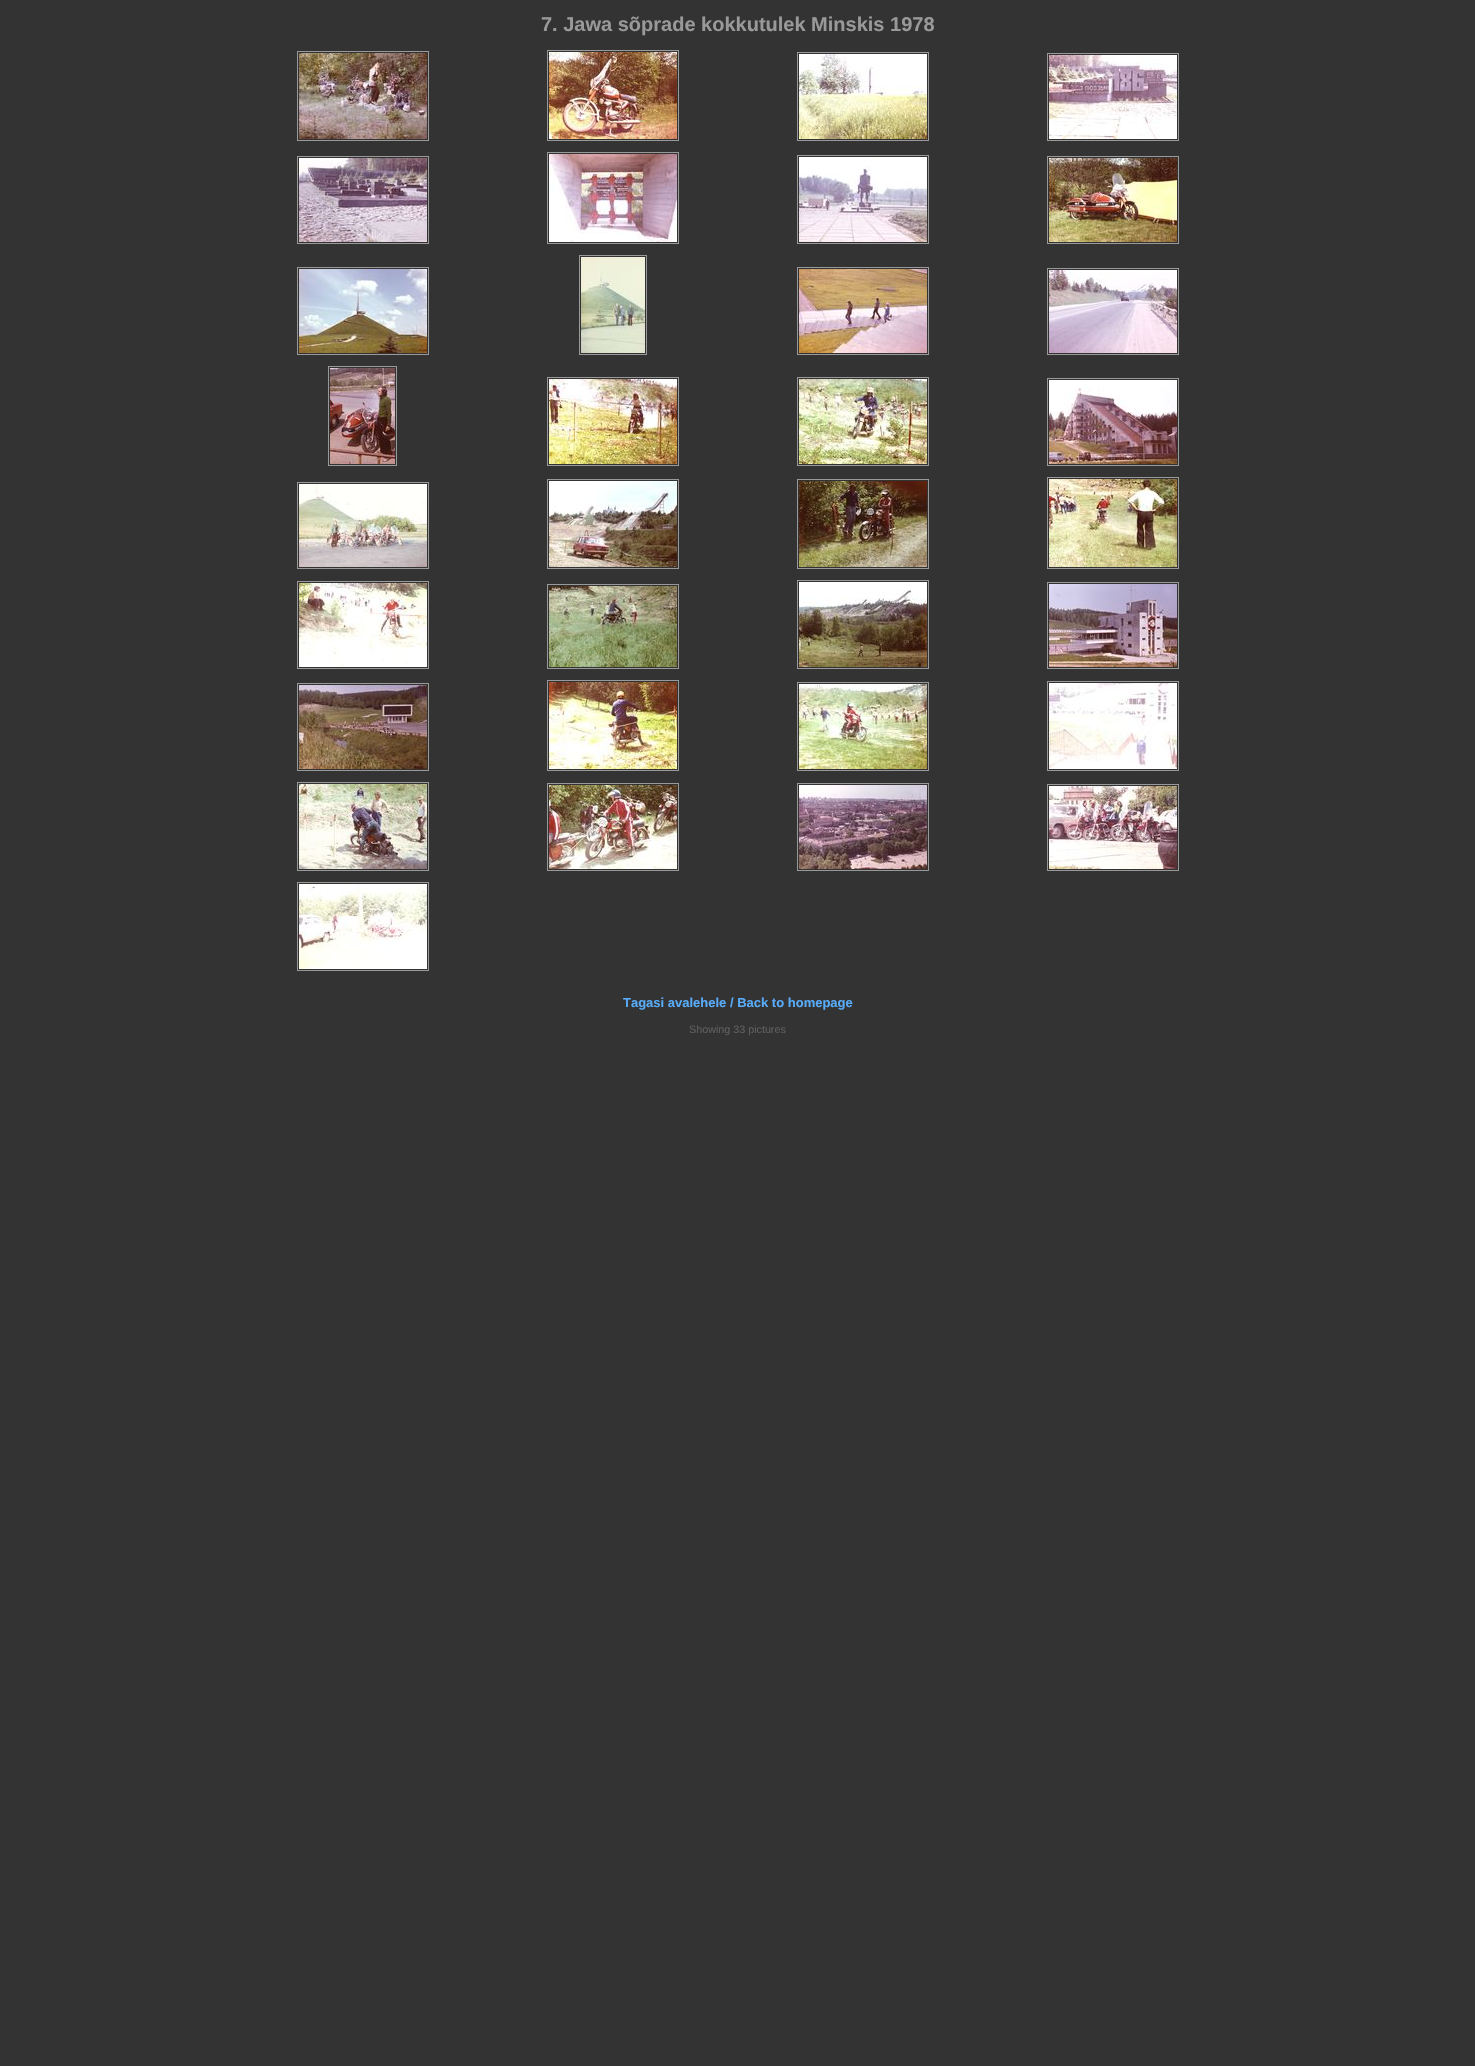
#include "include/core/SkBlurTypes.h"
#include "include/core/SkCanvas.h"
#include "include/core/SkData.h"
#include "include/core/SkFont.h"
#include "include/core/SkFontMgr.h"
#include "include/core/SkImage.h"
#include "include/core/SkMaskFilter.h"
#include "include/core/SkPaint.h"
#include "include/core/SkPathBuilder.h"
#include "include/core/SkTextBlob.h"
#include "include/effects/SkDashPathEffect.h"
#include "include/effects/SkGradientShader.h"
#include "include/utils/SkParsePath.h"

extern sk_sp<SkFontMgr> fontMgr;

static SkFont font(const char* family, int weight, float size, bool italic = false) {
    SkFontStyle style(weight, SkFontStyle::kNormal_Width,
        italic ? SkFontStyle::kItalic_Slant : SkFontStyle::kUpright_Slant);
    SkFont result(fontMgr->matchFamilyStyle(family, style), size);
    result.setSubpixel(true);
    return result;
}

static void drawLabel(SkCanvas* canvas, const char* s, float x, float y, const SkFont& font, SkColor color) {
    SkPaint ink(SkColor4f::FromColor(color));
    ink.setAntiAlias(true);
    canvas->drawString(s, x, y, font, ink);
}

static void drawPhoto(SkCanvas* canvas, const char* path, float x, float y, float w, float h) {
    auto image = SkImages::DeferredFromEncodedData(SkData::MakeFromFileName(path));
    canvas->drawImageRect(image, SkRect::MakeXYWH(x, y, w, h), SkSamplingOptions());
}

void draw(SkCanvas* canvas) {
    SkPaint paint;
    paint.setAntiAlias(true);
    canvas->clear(0xFF333333);
    SkFont font1 = font("Liberation Sans", 700, 20);
    drawLabel(canvas, "7. Jawa sõprade kokkutulek Minskis 1978", 541, 31, font1, 0xFF999999);
    paint.setStroke(true);
    paint.setStrokeWidth(1);
    paint.setColor(0xFF999999);
    canvas->drawRect(SkRect::MakeXYWH(297.5f, 51.5f, 131, 89), paint);
    drawPhoto(canvas, "assets/img1.png", 299, 53, 128, 86);
    canvas->drawRect(SkRect::MakeXYWH(547.5f, 50.5f, 131, 90), paint);
    drawPhoto(canvas, "assets/img2.png", 549, 52, 128, 87);
    canvas->drawRect(SkRect::MakeXYWH(797.5f, 52.5f, 131, 88), paint);
    drawPhoto(canvas, "assets/img3.png", 799, 54, 128, 85);
    canvas->drawRect(SkRect::MakeXYWH(1047.5f, 53.5f, 131, 87), paint);
    drawPhoto(canvas, "assets/img4.png", 1049, 55, 128, 84);
    canvas->drawRect(SkRect::MakeXYWH(297.5f, 156.5f, 131, 87), paint);
    drawPhoto(canvas, "assets/img5.png", 299, 158, 128, 84);
    canvas->drawRect(SkRect::MakeXYWH(547.5f, 152.5f, 131, 91), paint);
    drawPhoto(canvas, "assets/img6.png", 549, 154, 128, 88);
    canvas->drawRect(SkRect::MakeXYWH(797.5f, 155.5f, 131, 88), paint);
    drawPhoto(canvas, "assets/img7.png", 799, 157, 128, 85);
    canvas->drawRect(SkRect::MakeXYWH(1047.5f, 156.5f, 131, 87), paint);
    drawPhoto(canvas, "assets/img8.png", 1049, 158, 128, 84);
    canvas->drawRect(SkRect::MakeXYWH(297.5f, 267.5f, 131, 87), paint);
    drawPhoto(canvas, "assets/img9.png", 299, 269, 128, 84);
    canvas->drawRect(SkRect::MakeXYWH(579.5f, 255.5f, 67, 99), paint);
    drawPhoto(canvas, "assets/img10.png", 581, 257, 64, 96);
    canvas->drawRect(SkRect::MakeXYWH(797.5f, 267.5f, 131, 87), paint);
    drawPhoto(canvas, "assets/img11.png", 799, 269, 128, 84);
    canvas->drawRect(SkRect::MakeXYWH(1047.5f, 268.5f, 131, 86), paint);
    drawPhoto(canvas, "assets/img12.png", 1049, 270, 128, 83);
    canvas->drawRect(SkRect::MakeXYWH(328.5f, 366.5f, 68, 99), paint);
    drawPhoto(canvas, "assets/img13.png", 330, 368, 65, 96);
    canvas->drawRect(SkRect::MakeXYWH(547.5f, 377.5f, 131, 88), paint);
    drawPhoto(canvas, "assets/img14.png", 549, 379, 128, 85);
    canvas->drawRect(SkRect::MakeXYWH(797.5f, 377.5f, 131, 88), paint);
    drawPhoto(canvas, "assets/img15.png", 799, 379, 128, 85);
    canvas->drawRect(SkRect::MakeXYWH(1047.5f, 378.5f, 131, 87), paint);
    drawPhoto(canvas, "assets/img16.png", 1049, 380, 128, 84);
    canvas->drawRect(SkRect::MakeXYWH(297.5f, 482.5f, 131, 86), paint);
    drawPhoto(canvas, "assets/img17.png", 299, 484, 128, 83);
    canvas->drawRect(SkRect::MakeXYWH(547.5f, 479.5f, 131, 89), paint);
    drawPhoto(canvas, "assets/img18.png", 549, 481, 128, 86);
    canvas->drawRect(SkRect::MakeXYWH(797.5f, 479.5f, 131, 89), paint);
    drawPhoto(canvas, "assets/img19.png", 799, 481, 128, 86);
    canvas->drawRect(SkRect::MakeXYWH(1047.5f, 477.5f, 131, 91), paint);
    drawPhoto(canvas, "assets/img20.png", 1049, 479, 128, 88);
    canvas->drawRect(SkRect::MakeXYWH(297.5f, 581.5f, 131, 87), paint);
    drawPhoto(canvas, "assets/img21.png", 299, 583, 128, 84);
    canvas->drawRect(SkRect::MakeXYWH(547.5f, 584.5f, 131, 84), paint);
    drawPhoto(canvas, "assets/img22.png", 549, 586, 128, 81);
    canvas->drawRect(SkRect::MakeXYWH(797.5f, 580.5f, 131, 88), paint);
    drawPhoto(canvas, "assets/img23.png", 799, 582, 128, 85);
    canvas->drawRect(SkRect::MakeXYWH(1047.5f, 582.5f, 131, 86), paint);
    drawPhoto(canvas, "assets/img24.png", 1049, 584, 128, 83);
    canvas->drawRect(SkRect::MakeXYWH(297.5f, 683.5f, 131, 87), paint);
    drawPhoto(canvas, "assets/img25.png", 299, 685, 128, 84);
    canvas->drawRect(SkRect::MakeXYWH(547.5f, 680.5f, 131, 90), paint);
    drawPhoto(canvas, "assets/img26.png", 549, 682, 128, 87);
    canvas->drawRect(SkRect::MakeXYWH(797.5f, 682.5f, 131, 88), paint);
    drawPhoto(canvas, "assets/img27.png", 799, 684, 128, 85);
    canvas->drawRect(SkRect::MakeXYWH(1047.5f, 681.5f, 131, 89), paint);
    drawPhoto(canvas, "assets/img28.png", 1049, 683, 128, 86);
    canvas->drawRect(SkRect::MakeXYWH(297.5f, 782.5f, 131, 88), paint);
    drawPhoto(canvas, "assets/img29.png", 299, 784, 128, 85);
    canvas->drawRect(SkRect::MakeXYWH(547.5f, 783.5f, 131, 87), paint);
    drawPhoto(canvas, "assets/img30.png", 549, 785, 128, 84);
    canvas->drawRect(SkRect::MakeXYWH(797.5f, 783.5f, 131, 87), paint);
    drawPhoto(canvas, "assets/img31.png", 799, 785, 128, 84);
    canvas->drawRect(SkRect::MakeXYWH(1047.5f, 784.5f, 131, 86), paint);
    drawPhoto(canvas, "assets/img32.png", 1049, 786, 128, 83);
    canvas->drawRect(SkRect::MakeXYWH(297.5f, 882.5f, 131, 88), paint);
    drawPhoto(canvas, "assets/img33.png", 299, 884, 128, 85);
    SkFont font2 = font("Liberation Sans", 700, 13);
    drawLabel(canvas, "Tagasi avalehele / Back to homepage", 623, 1007, font2, 0xFF58ACFA);
    SkFont font3 = font("Liberation Sans", 400, 10.75f);
    drawLabel(canvas, "Showing 33 pictures", 689, 1033, font3, 0xFF5F5F5F);
}
